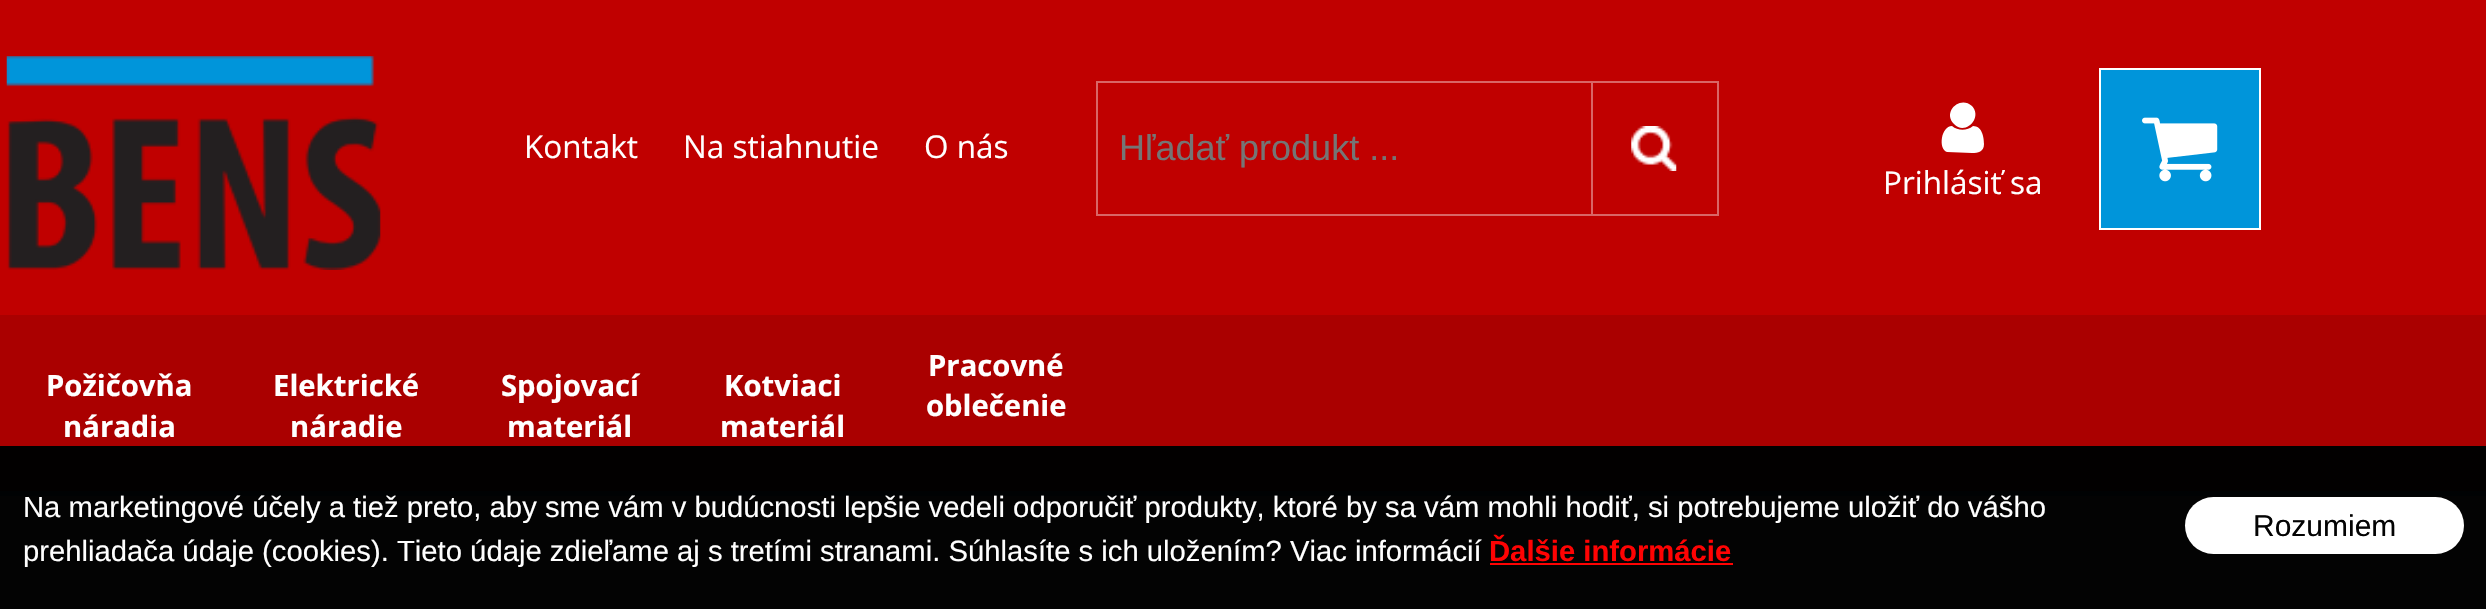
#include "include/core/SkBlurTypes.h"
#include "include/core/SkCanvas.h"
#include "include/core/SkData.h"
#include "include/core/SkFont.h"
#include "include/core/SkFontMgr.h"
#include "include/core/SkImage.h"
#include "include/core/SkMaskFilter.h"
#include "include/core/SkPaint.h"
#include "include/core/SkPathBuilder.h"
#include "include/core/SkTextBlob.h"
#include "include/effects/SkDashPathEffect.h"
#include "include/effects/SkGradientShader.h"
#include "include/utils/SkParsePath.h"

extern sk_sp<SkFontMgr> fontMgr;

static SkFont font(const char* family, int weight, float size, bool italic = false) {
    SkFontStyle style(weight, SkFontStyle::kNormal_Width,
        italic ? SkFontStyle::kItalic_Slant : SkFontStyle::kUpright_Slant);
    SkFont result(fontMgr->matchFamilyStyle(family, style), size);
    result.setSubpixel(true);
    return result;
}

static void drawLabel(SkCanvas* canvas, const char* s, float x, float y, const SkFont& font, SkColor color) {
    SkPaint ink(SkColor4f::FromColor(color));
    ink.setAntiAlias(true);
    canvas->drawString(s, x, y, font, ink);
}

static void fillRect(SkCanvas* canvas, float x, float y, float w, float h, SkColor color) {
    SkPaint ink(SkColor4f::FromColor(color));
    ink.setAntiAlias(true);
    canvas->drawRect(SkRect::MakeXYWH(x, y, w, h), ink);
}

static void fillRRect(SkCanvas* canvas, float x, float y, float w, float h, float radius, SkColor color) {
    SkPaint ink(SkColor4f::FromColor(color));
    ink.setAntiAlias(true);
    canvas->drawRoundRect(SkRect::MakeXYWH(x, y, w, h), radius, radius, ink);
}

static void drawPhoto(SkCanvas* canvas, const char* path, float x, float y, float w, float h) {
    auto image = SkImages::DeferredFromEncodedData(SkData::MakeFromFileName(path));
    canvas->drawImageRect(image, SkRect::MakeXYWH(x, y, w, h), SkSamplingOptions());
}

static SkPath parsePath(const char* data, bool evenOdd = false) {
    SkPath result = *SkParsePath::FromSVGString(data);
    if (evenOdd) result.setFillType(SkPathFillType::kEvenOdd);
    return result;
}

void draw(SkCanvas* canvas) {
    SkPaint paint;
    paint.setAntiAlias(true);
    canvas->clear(0xFFFFFFFF);
    fillRect(canvas, 0, 0, 2486, 315, 0xFFC00000);
    SkFont font1 = font("Open Sans", 400, 31.5f);
    drawLabel(canvas, "Kontakt", 524, 158, font1, 0xFFFFFFFF);
    drawLabel(canvas, "Na stiahnutie", 683, 158, font1, 0xFFFFFFFF);
    drawLabel(canvas, "O nás", 924, 158, font1, 0xFFFFFFFF);
    fillRect(canvas, 0, 315, 2486, 176, 0xFFAA0000);
    fillRect(canvas, 0, 491, 2486, 5, 0xFF0095DA);
    SkFont font2 = font("Open Sans", 700, 29.25f);
    drawLabel(canvas, "Požičovňa", 46, 396, font2, 0xFFFFFFFF);
    drawLabel(canvas, "náradia", 63, 437, font2, 0xFFFFFFFF);
    drawLabel(canvas, "Elektrické", 273, 396, font2, 0xFFFFFFFF);
    drawLabel(canvas, "náradie", 290, 437, font2, 0xFFFFFFFF);
    drawLabel(canvas, "Spojovací", 501, 396, font2, 0xFFFFFFFF);
    drawLabel(canvas, "materiál", 507, 437, font2, 0xFFFFFFFF);
    drawLabel(canvas, "Kotviaci", 724, 396, font2, 0xFFFFFFFF);
    drawLabel(canvas, "materiál", 720, 437, font2, 0xFFFFFFFF);
    drawLabel(canvas, "Pracovné", 928, 376, font2, 0xFFFFFFFF);
    drawLabel(canvas, "oblečenie", 926, 416, font2, 0xFFFFFFFF);
    drawPhoto(canvas, "assets/img1.png", 101, 537, 30, 33);
    drawPhoto(canvas, "assets/img2.png", 436, 537, 30, 33);
    drawPhoto(canvas, "assets/img1.png", 767, 537, 30, 33);
    drawPhoto(canvas, "assets/img3.png", 6, 56, 375, 214);
    paint.setStroke(true);
    paint.setStrokeWidth(2);
    paint.setColor(0xFFD96666);
    canvas->drawRect(SkRect::MakeXYWH(1097, 82, 621, 133), paint);
    SkFont font3 = font("Liberation Sans", 400, 36);
    drawLabel(canvas, "Hľadať produkt ...", 1119, 160, font3, 0xFF757575);
    fillRect(canvas, 1591, 83, 2, 131, 0xFFD96666);
    drawPhoto(canvas, "assets/img4.png", 1631, 126, 46, 45);
    paint.setStroke(false);
    paint.setColor(0xFFFFFFFF);
    canvas->drawPath(parsePath("M1984 144C1984 152 1978 153 1972 153L1947 152C1938 149 1941 126 1952 126C1958 131 1967 131 1973 126C1982 126 1984 137 1984 144ZM1972 106C1983 118 1965 136 1954 124C1942 112 1960 95 1972 106Z"), paint);
    drawLabel(canvas, "Prihlásiť sa", 1883, 194, font1, 0xFFFFFFFF);
    paint.setColor(0xFF0095DA);
    canvas->drawRect(SkRect::MakeXYWH(2100, 69, 160, 160), paint);
    paint.setStroke(true);
    paint.setColor(0xFFFFFFFF);
    canvas->drawRect(SkRect::MakeXYWH(2100, 69, 160, 160), paint);
    drawPhoto(canvas, "assets/img5.png", 2142, 117, 76, 65);
    fillRect(canvas, 0, 446, 2486, 163, 0xFC000000);
    SkFont font4 = font("Liberation Sans", 400, 29.25f);
    drawLabel(canvas, "Na marketingové účely a tiež preto, aby sme vám v budúcnosti lepšie vedeli odporučiť produkty, ktoré by sa vám mohli hodiť, si potrebujeme uložiť do vášho", 23, 517, font4, 0xFFFFFFFF);
    fillRRect(canvas, 2185, 497, 279, 57, 28.5f, 0xFFFFFFFF);
    SkFont font5 = font("Liberation Sans", 400, 30);
    drawLabel(canvas, "Rozumiem", 2253, 536, font5, 0xFF030303);
    drawLabel(canvas, "prehliadača údaje (cookies). Tieto údaje zdieľame aj s tretími stranami. Súhlasíte s ich uložením? Viac informácií", 23, 561, font4, 0xFFFFFFFF);
    SkFont font6 = font("Liberation Sans", 700, 29.25f);
    drawLabel(canvas, "Ďalšie informácie", 1489, 561, font6, 0xFFFF0303);
    fillRect(canvas, 1490, 563, 243, 2, 0xFFFF0303);
}
